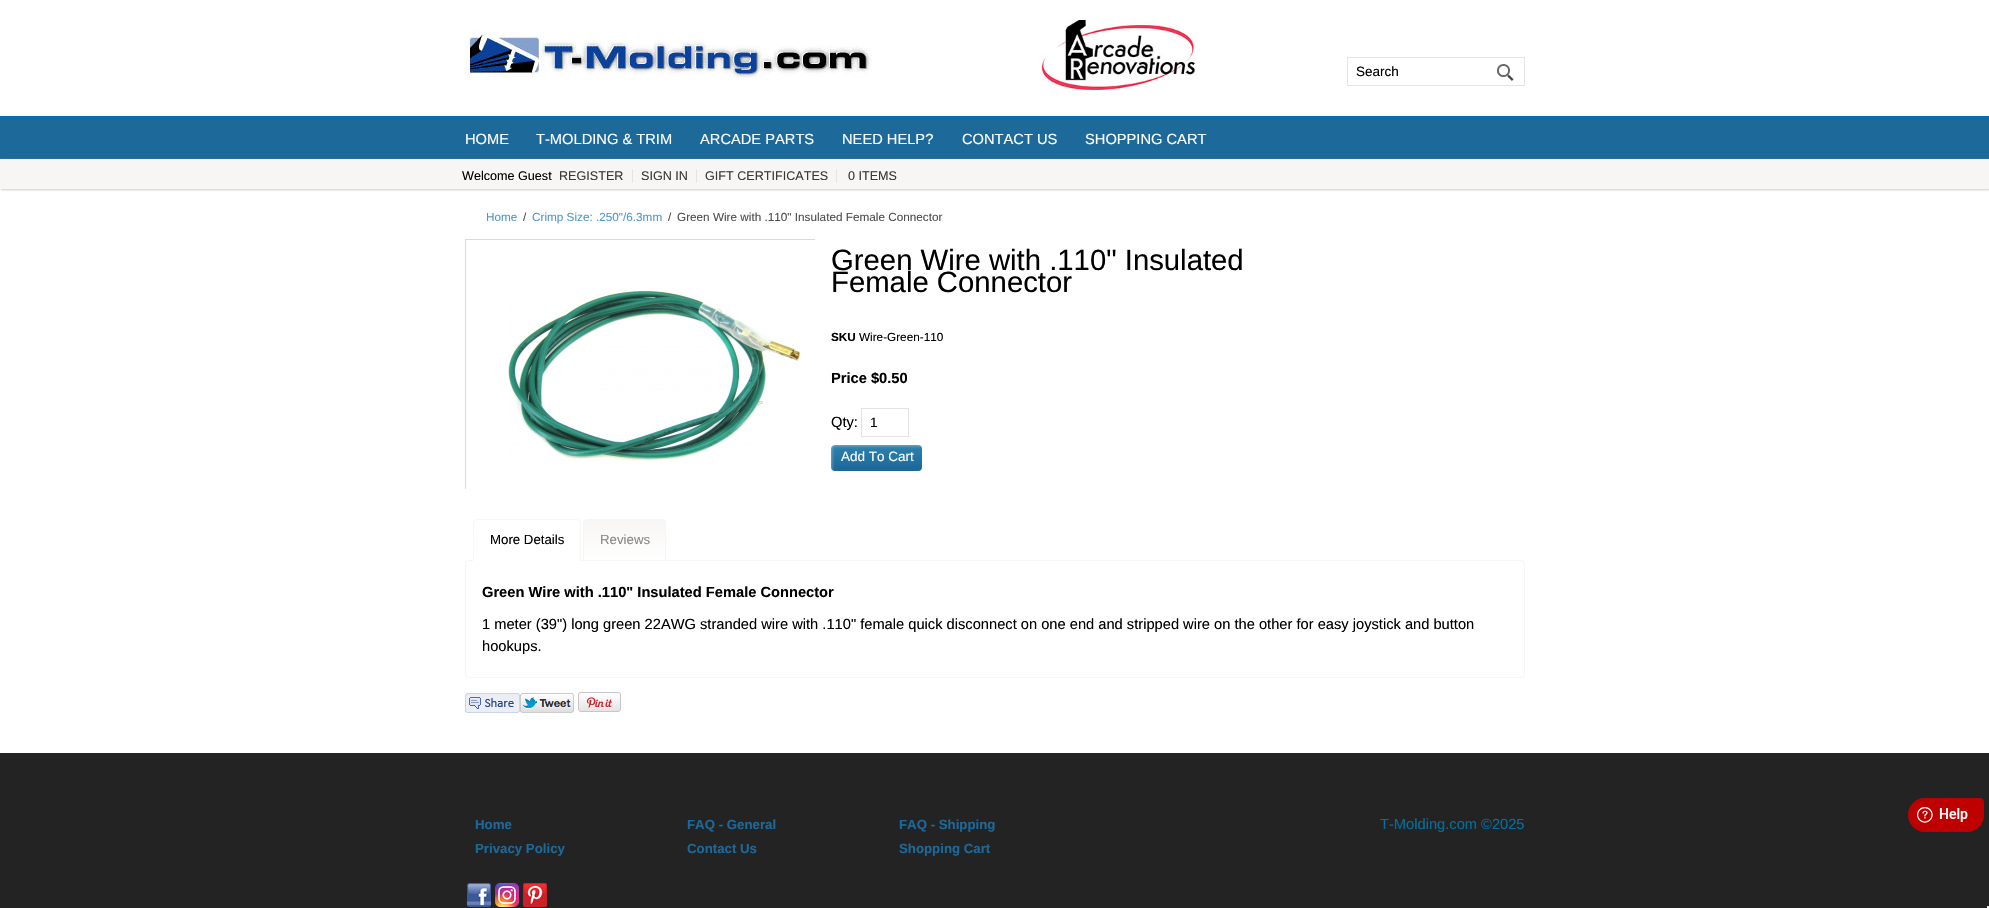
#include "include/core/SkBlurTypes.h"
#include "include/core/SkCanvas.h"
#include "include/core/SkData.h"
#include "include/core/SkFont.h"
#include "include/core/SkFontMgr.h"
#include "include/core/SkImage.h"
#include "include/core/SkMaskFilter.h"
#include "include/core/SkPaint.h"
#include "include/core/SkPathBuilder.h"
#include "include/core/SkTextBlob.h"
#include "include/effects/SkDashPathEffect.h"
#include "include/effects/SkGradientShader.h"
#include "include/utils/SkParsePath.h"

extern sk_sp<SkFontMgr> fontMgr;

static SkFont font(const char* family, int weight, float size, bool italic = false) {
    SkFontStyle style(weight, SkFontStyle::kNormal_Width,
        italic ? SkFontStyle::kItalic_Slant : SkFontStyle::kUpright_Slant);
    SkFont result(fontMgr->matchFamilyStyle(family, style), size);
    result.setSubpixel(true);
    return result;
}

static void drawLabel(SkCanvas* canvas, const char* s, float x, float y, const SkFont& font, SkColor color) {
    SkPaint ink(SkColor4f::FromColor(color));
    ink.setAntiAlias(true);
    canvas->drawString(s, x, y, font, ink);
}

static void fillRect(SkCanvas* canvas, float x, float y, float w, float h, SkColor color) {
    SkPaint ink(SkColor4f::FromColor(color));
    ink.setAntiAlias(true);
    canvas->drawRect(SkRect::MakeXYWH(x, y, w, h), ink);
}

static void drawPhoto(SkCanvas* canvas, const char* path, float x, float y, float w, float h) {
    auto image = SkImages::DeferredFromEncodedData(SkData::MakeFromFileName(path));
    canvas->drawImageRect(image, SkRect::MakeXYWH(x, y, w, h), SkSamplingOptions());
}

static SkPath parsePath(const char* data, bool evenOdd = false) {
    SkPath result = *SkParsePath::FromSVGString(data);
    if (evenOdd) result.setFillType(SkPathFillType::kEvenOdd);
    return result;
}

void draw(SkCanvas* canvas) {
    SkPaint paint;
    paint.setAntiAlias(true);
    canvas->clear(0xFF232323);
    fillRect(canvas, 0, 0, 1989, 116, 0xFFFFFFFF);
    drawPhoto(canvas, "assets/img1.png", 465, 30, 408, 48);
    drawPhoto(canvas, "assets/img2.png", 1042, 20, 154, 70);
    paint.setStroke(true);
    paint.setStrokeWidth(1);
    paint.setColor(0xFFE3E3E3);
    canvas->drawRect(SkRect::MakeXYWH(1347.5f, 57.5f, 177, 28), paint);
    SkFont font1 = font("Liberation Sans", 400, 13.5f);
    drawLabel(canvas, "Search", 1356, 76, font1, 0xFF000000);
    drawPhoto(canvas, "assets/img3.png", 1497, 64, 17, 17);
    fillRect(canvas, 0, 117, 1989, 42, 0xFF1D699A);
    fillRect(canvas, 0, 116, 1989, 1, 0xFF086BB2);
    fillRect(canvas, 0, 118, 1989, 1, 0xFF086BB2);
    SkFont font2 = font("Liberation Sans", 400, 14.67f);
    drawLabel(canvas, "HOME", 465, 144, font2, 0xFFFFFFFF);
    drawLabel(canvas, "T-MOLDING & TRIM", 536, 144, font2, 0xFFFFFFFF);
    drawLabel(canvas, "ARCADE PARTS", 700, 144, font2, 0xFFFFFFFF);
    drawLabel(canvas, "NEED HELP?", 842, 144, font2, 0xFFFFFFFF);
    drawLabel(canvas, "CONTACT US", 962, 144, font2, 0xFFFFFFFF);
    drawLabel(canvas, "SHOPPING CART", 1085, 144, font2, 0xFFFFFFFF);
    fillRect(canvas, 0, 189, 1989, 564, 0xFFFFFFFF);
    SkFont font3 = font("Liberation Sans", 400, 11.75f);
    drawLabel(canvas, "Home", 486, 221, font3, 0xFF5297C9);
    drawLabel(canvas, "/", 523, 221, font3, 0xFF4D4D4D);
    drawLabel(canvas, "Crimp Size: .250\"/6.3mm", 532, 221, font3, 0xFF5297C9);
    drawLabel(canvas, "/", 668, 221, font3, 0xFF4D4D4D);
    drawLabel(canvas, "Green Wire with .110\" Insulated Female Connector", 677, 221, font3, 0xFF4D4D4D);
    SkFont font4 = font("Liberation Sans", 400, 29.3f);
    drawLabel(canvas, "Green Wire with .110\" Insulated", 831, 270, font4, 0xFF000000);
    drawLabel(canvas, "Female Connector", 831, 292, font4, 0xFF000000);
    SkFont font5 = font("Liberation Sans", 700, 11.75f);
    drawLabel(canvas, "SKU", 831, 341, font5, 0xFF000000);
    SkFont font6 = font("Liberation Sans", 700, 14.67f);
    drawLabel(canvas, "Price $0.50", 831, 383, font6, 0xFF000000);
    drawLabel(canvas, "Qty:", 831, 427, font2, 0xFF000000);
    canvas->save();
    canvas->clipRect(SkRect::MakeXYWH(465, 239, 350, 250));
    paint.setColor(0xFFDBDBDB);
    canvas->drawRect(SkRect::MakeXYWH(465.5f, 239.5f, 371, 270), paint);
    canvas->restore();
    drawPhoto(canvas, "assets/img4.png", 508, 290, 293, 172);
    drawLabel(canvas, "Wire-Green-110", 859, 341, font3, 0xFF000000);
    paint.setColor(0xFFE3E3E3);
    canvas->drawRect(SkRect::MakeXYWH(861.5f, 408.5f, 47, 28), paint);
    drawLabel(canvas, "1", 870, 427, font1, 0xFF000000);
    drawPhoto(canvas, "assets/img5.png", 831, 445, 91, 26);
    drawLabel(canvas, "Add To Cart", 841, 461, font1, 0xFFFFFFFF);
    paint.setColor(0xFFF7F6F4);
    canvas->drawRoundRect(SkRect::MakeXYWH(465.5f, 560.5f, 1059, 117), 3.5f, 3.5f, paint);
    paint.setStroke(false);
    paint.setColor(0xFFFFFFFF);
    canvas->drawPath(parsePath("M477 519H577C579 519 581 521 581 523V561H473V523C473 521 475 519 477 519Z"), paint);
    paint.setColor(0xFFF7F6F4);
    canvas->drawPath(parsePath("M477 519L474 520L475 521L477 520H577L579 521L580 520L577 519Z"), paint);
    canvas->drawPath(parsePath("M581 561V523C581 522 580 521 580 520L579 521C581 523 580 555 580 560Z"), paint);
    paint.setColor(0xFFFFFFFF);
    canvas->drawPath(parsePath("M581 561L580 560H474L473 561Z"), paint);
    paint.setColor(0xFFF7F6F4);
    canvas->drawPath(parsePath("M473 561L474 560C474 555 473 523 475 521L474 520L473 523Z"), paint);
    SkFont font7 = font("Liberation Sans", 400, 13.25f);
    drawLabel(canvas, "More Details", 490, 544, font7, 0xFF000000);
    canvas->save();
    canvas->clipPath(parsePath("M587 519H662C664 519 666 521 666 523V561H583V523C583 521 585 519 587 519Z"), true);
    {
        const SkColor colors[] = {0xFFF7F6F4, 0xFFFFFFFF};
        const float stops[] = {0, 1};
        const SkPoint ends[] = {{584, 520}, {584, 560}};
        paint.setShader(SkGradientShader::MakeLinear(ends, colors, stops, 2, SkTileMode::kClamp));
        paint.setAlpha(255);
    }
    canvas->drawRect(SkRect::MakeXYWH(583, 520, 83, 40), paint);
    canvas->restore();
    paint.setStroke(true);
    paint.setShader(nullptr);
    paint.setColor(0xFFF7F6F4);
    canvas->drawPath(parsePath("M587 519.5H662C664 519.5 665.5 521 665.5 523V560.5H583.5V523C583.5 521 585 519.5 587 519.5Z"), paint);
    drawLabel(canvas, "Reviews", 600, 544, font7, 0xFF888888);
    drawLabel(canvas, "Green Wire with .110\" Insulated Female Connector", 482, 597, font6, 0xFF000000);
    drawLabel(canvas, "1 meter (39\") long green 22AWG stranded wire with .110\" female quick disconnect on one end and stripped wire on the other for easy joystick and button", 482, 629, font2, 0xFF000000);
    drawLabel(canvas, "hookups.", 482, 651, font2, 0xFF000000);
    drawPhoto(canvas, "assets/img6.png", 465, 693, 55, 20);
    drawPhoto(canvas, "assets/img7.png", 520, 693, 54, 20);
    drawPhoto(canvas, "assets/img8.png", 578, 692, 43, 20);
    paint.setStroke(false);
    paint.setColor(0xFFCCCCCC);
    paint.setMaskFilter(SkMaskFilter::MakeBlur(kNormal_SkBlurStyle, 1));
    canvas->drawRect(SkRect::MakeXYWH(1, 160, 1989, 30), paint);
    paint.setMaskFilter(nullptr);
    fillRect(canvas, 0, 159, 1989, 30, 0xFFF7F6F4);
    SkFont font8 = font("Liberation Sans", 400, 12.6f);
    drawLabel(canvas, "Welcome Guest", 462, 180, font8, 0xFF000000);
    drawLabel(canvas, "REGISTER", 559, 180, font8, 0xFF383838);
    fillRect(canvas, 632, 169, 1, 14, 0xFFE5E5E5);
    drawLabel(canvas, "SIGN IN", 641, 180, font8, 0xFF383838);
    fillRect(canvas, 696, 169, 1, 14, 0xFFE5E5E5);
    drawLabel(canvas, "GIFT CERTIFICATES", 705, 180, font8, 0xFF383838);
    fillRect(canvas, 836, 169, 1, 14, 0xFFE5E5E5);
    drawLabel(canvas, "0 ITEMS", 848, 180, font8, 0xFF383838);
    SkFont font9 = font("Liberation Sans", 700, 13.25f);
    drawLabel(canvas, "Home", 475, 829, font9, 0xFF1D699A);
    drawLabel(canvas, "FAQ - General", 687, 829, font9, 0xFF1D699A);
    drawLabel(canvas, "FAQ - Shipping", 899, 829, font9, 0xFF1D699A);
    drawLabel(canvas, "T-Molding.com ©2025", 1380, 829, font2, 0xFF0070A0);
    drawLabel(canvas, "Privacy Policy", 475, 853, font9, 0xFF1D699A);
    drawLabel(canvas, "Contact Us", 687, 853, font9, 0xFF1D699A);
    drawLabel(canvas, "Shopping Cart", 899, 853, font9, 0xFF1D699A);
    drawPhoto(canvas, "assets/img9.png", 467, 883, 24, 24);
    drawPhoto(canvas, "assets/img10.png", 495, 883, 24, 24);
    drawPhoto(canvas, "assets/img11.png", 523, 883, 24, 24);
    drawPhoto(canvas, "assets/img12.png", 1908, 798, 76, 34);
    fillRect(canvas, 1987, 906, 2, 2, 0xFFF5F5F5);
}
